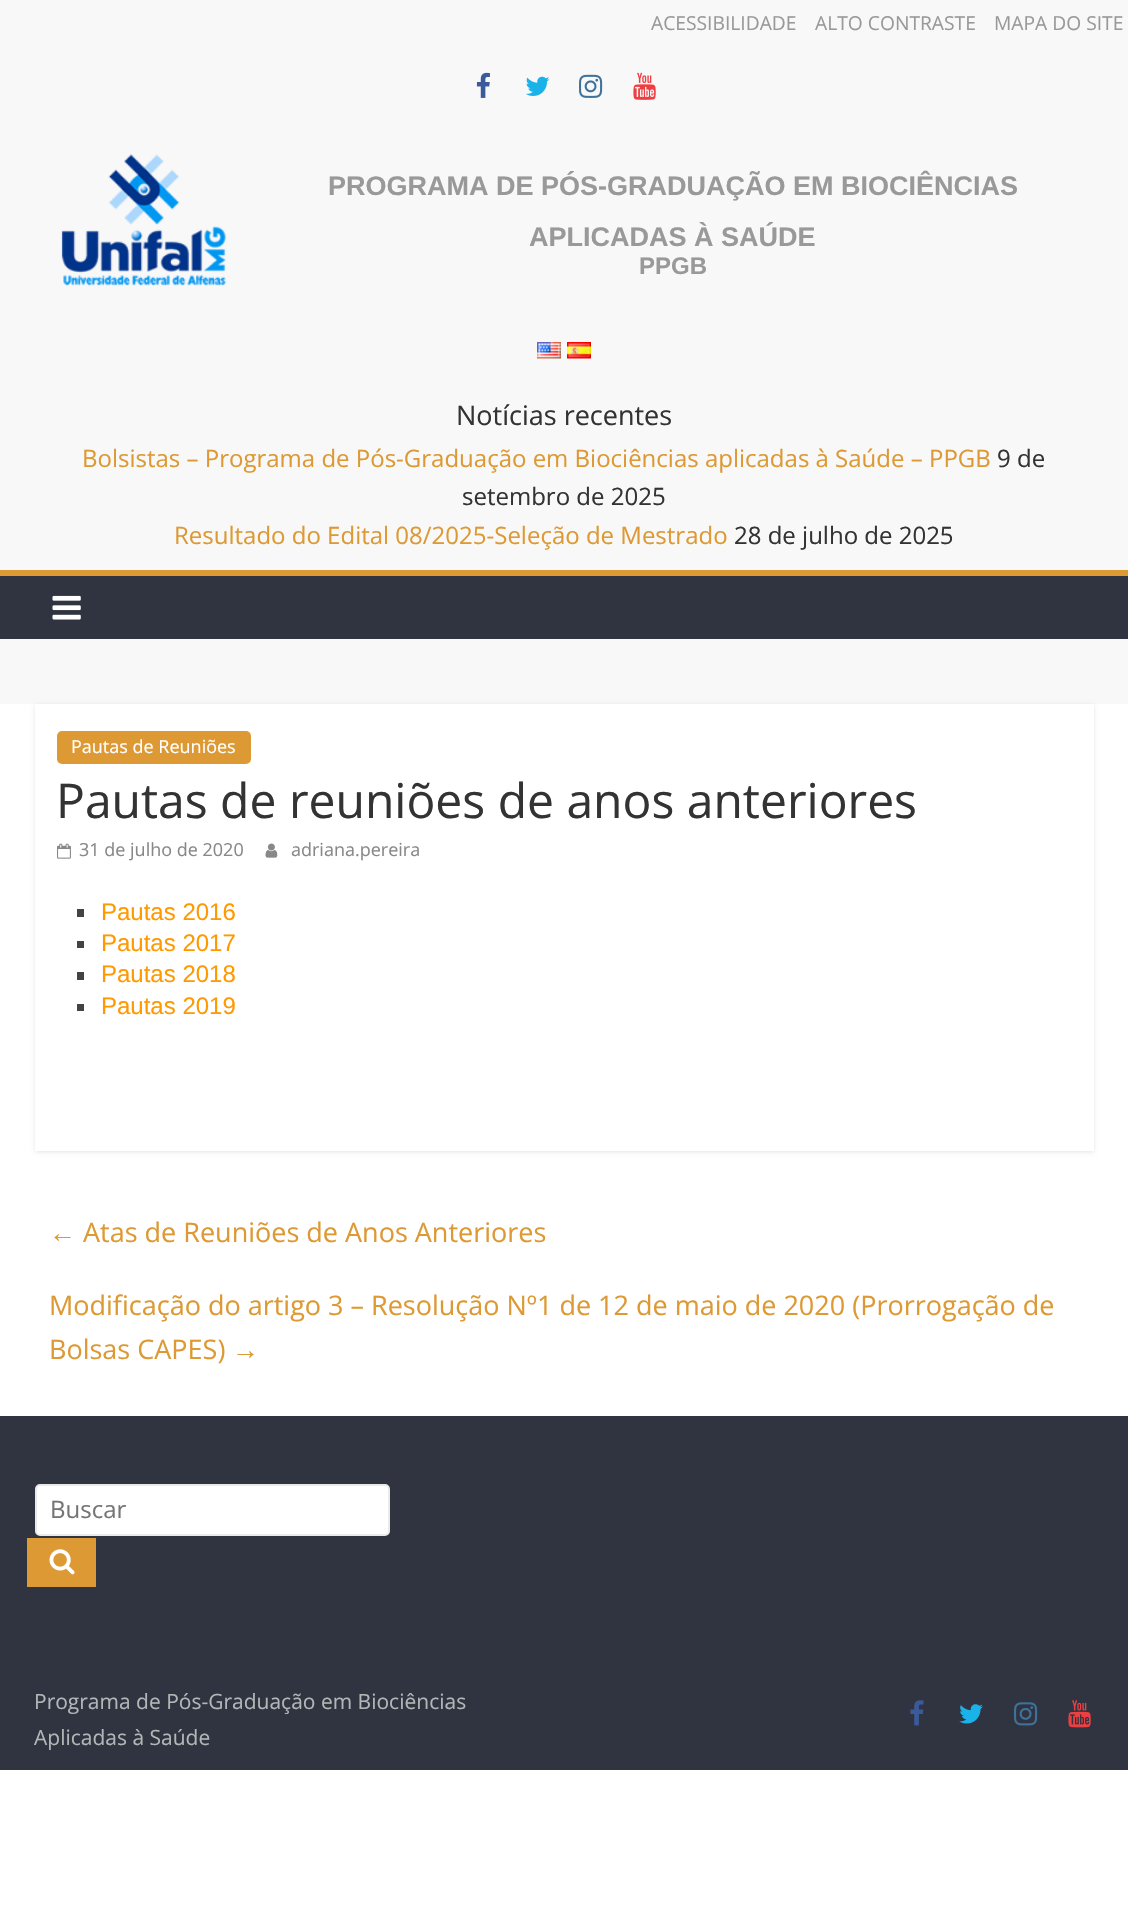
#include "include/core/SkBlurTypes.h"
#include "include/core/SkCanvas.h"
#include "include/core/SkData.h"
#include "include/core/SkFont.h"
#include "include/core/SkFontMgr.h"
#include "include/core/SkImage.h"
#include "include/core/SkMaskFilter.h"
#include "include/core/SkPaint.h"
#include "include/core/SkPathBuilder.h"
#include "include/core/SkTextBlob.h"
#include "include/effects/SkDashPathEffect.h"
#include "include/effects/SkGradientShader.h"
#include "include/utils/SkParsePath.h"

extern sk_sp<SkFontMgr> fontMgr;

static SkFont font(const char* family, int weight, float size, bool italic = false) {
    SkFontStyle style(weight, SkFontStyle::kNormal_Width,
        italic ? SkFontStyle::kItalic_Slant : SkFontStyle::kUpright_Slant);
    SkFont result(fontMgr->matchFamilyStyle(family, style), size);
    result.setSubpixel(true);
    return result;
}

static void drawLabel(SkCanvas* canvas, const char* s, float x, float y, const SkFont& font, SkColor color) {
    SkPaint ink(SkColor4f::FromColor(color));
    ink.setAntiAlias(true);
    canvas->drawString(s, x, y, font, ink);
}

static void fillRect(SkCanvas* canvas, float x, float y, float w, float h, SkColor color) {
    SkPaint ink(SkColor4f::FromColor(color));
    ink.setAntiAlias(true);
    canvas->drawRect(SkRect::MakeXYWH(x, y, w, h), ink);
}

static void fillRRect(SkCanvas* canvas, float x, float y, float w, float h, float radius, SkColor color) {
    SkPaint ink(SkColor4f::FromColor(color));
    ink.setAntiAlias(true);
    canvas->drawRoundRect(SkRect::MakeXYWH(x, y, w, h), radius, radius, ink);
}

static void drawPhoto(SkCanvas* canvas, const char* path, float x, float y, float w, float h) {
    auto image = SkImages::DeferredFromEncodedData(SkData::MakeFromFileName(path));
    canvas->drawImageRect(image, SkRect::MakeXYWH(x, y, w, h), SkSamplingOptions());
}

static SkPath parsePath(const char* data, bool evenOdd = false) {
    SkPath result = *SkParsePath::FromSVGString(data);
    if (evenOdd) result.setFillType(SkPathFillType::kEvenOdd);
    return result;
}

void draw(SkCanvas* canvas) {
    SkPaint paint;
    paint.setAntiAlias(true);
    canvas->clear(0xFFFFFFFF);
    fillRect(canvas, 0, 0, 1128, 704, 0xFFF8F8F8);
    SkFont font1 = font("Open Sans", 400, 19.25f);
    drawLabel(canvas, "ACESSIBILIDADE", 651, 30, font1, 0xFF999999);
    drawLabel(canvas, "ALTO CONTRASTE", 815, 30, font1, 0xFF999999);
    drawLabel(canvas, "MAPA DO SITE", 994, 30, font1, 0xFF999999);
    drawPhoto(canvas, "assets/img1.png", 476, 72, 14, 26);
    drawPhoto(canvas, "assets/img2.png", 525, 76, 25, 20);
    drawPhoto(canvas, "assets/img3.png", 579, 74, 24, 24);
    drawPhoto(canvas, "assets/img4.png", 633, 72, 23, 28);
    drawPhoto(canvas, "assets/img5.png", 61, 154, 166, 132);
    SkFont font2 = font("Liberation Sans", 700, 27);
    drawLabel(canvas, "PROGRAMA DE PÓS-GRADUAÇÃO EM BIOCIÊNCIAS", 328, 195, font2, 0xFF999999);
    drawLabel(canvas, "APLICADAS À SAÚDE", 529, 246, font2, 0xFF999999);
    SkFont font3 = font("Liberation Sans", 700, 24);
    drawLabel(canvas, "PPGB", 639, 274, font3, 0xFF999999);
    drawPhoto(canvas, "assets/img6.png", 537, 342, 24, 17);
    drawPhoto(canvas, "assets/img7.png", 567, 342, 24, 17);
    SkFont font4 = font("Open Sans", 400, 27);
    drawLabel(canvas, "Notícias recentes", 456, 425, font4, 0xFF333333);
    SkFont font5 = font("Open Sans", 400, 24);
    drawLabel(canvas, "Bolsistas – Programa de Pós-Graduação em Biociências aplicadas à Saúde – PPGB", 82, 467, font5, 0xFFDD9933);
    drawLabel(canvas, "9 de", 997, 467, font5, 0xFF333333);
    drawLabel(canvas, "setembro de 2025", 462, 505, font5, 0xFF333333);
    drawLabel(canvas, "Resultado do Edital 08/2025-Seleção de Mestrado", 174, 544, font5, 0xFFDD9933);
    drawLabel(canvas, "28 de julho de 2025", 734, 544, font5, 0xFF333333);
    fillRect(canvas, 0, 576, 1128, 63, 0xFF303440);
    fillRect(canvas, 0, 570, 1128, 6, 0xFFDD9933);
    drawPhoto(canvas, "assets/img8.png", 52, 595, 29, 25);
    canvas->save();
    canvas->clipPath(parsePath("M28 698H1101V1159H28ZM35 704H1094V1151H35Z", true), true);
    paint.setColor(0x1A000000);
    paint.setMaskFilter(SkMaskFilter::MakeBlur(kNormal_SkBlurStyle, 2));
    canvas->drawRect(SkRect::MakeXYWH(35, 705, 1059, 447), paint);
    paint.setMaskFilter(nullptr);
    canvas->restore();
    fillRRect(canvas, 57, 731, 194, 33, 5, 0xFFDD9933);
    SkFont font6 = font("Open Sans", 400, 18);
    drawLabel(canvas, "Pautas de Reuniões", 71, 753, font6, 0xFFFFFFFF);
    SkFont font7 = font("Open Sans", 400, 48);
    drawLabel(canvas, "Pautas de reuniões de anos anteriores", 56, 818, font7, 0xFF333333);
    drawPhoto(canvas, "assets/img9.png", 57, 843, 14, 16);
    drawLabel(canvas, "31 de julho de 2020", 79, 856, font6, 0xFF888888);
    drawPhoto(canvas, "assets/img10.png", 265, 843, 13, 15);
    drawLabel(canvas, "adriana.pereira", 291, 856, font6, 0xFF888888);
    fillRect(canvas, 77, 909, 7, 8, 0xFF444444);
    SkFont font8 = font("Liberation Sans", 400, 24);
    drawLabel(canvas, "Pautas 2016", 101, 920, font8, 0xFFFF9900);
    fillRect(canvas, 77, 941, 7, 7, 0xFF444444);
    drawLabel(canvas, "Pautas 2017", 101, 951, font8, 0xFFFF9900);
    fillRect(canvas, 77, 972, 7, 8, 0xFF444444);
    drawLabel(canvas, "Pautas 2018", 101, 982, font8, 0xFFFF9900);
    fillRect(canvas, 77, 1004, 7, 7, 0xFF444444);
    drawLabel(canvas, "Pautas 2019", 101, 1014, font8, 0xFFFF9900);
    SkFont font9 = font("Liberation Serif", 400, 27);
    drawLabel(canvas, "←", 49, 1242, font9, 0xFFDD9933);
    drawLabel(canvas, "Atas de Reuniões de Anos Anteriores", 83, 1242, font4, 0xFFDD9933);
    drawLabel(canvas, "Modificação do artigo 3 – Resolução Nº1 de 12 de maio de 2020 (Prorrogação de", 49, 1315, font4, 0xFFDD9933);
    drawLabel(canvas, "Bolsas CAPES)", 49, 1359, font4, 0xFFDD9933);
    drawLabel(canvas, "→", 232, 1359, font9, 0xFFDD9933);
    fillRect(canvas, 0, 1416, 1128, 354, 0xFF303440);
    paint.setColor(0xFFFFFFFF);
    canvas->drawRoundRect(SkRect::MakeXYWH(36, 1485, 353, 50), 4, 4, paint);
    paint.setStroke(true);
    paint.setStrokeWidth(2);
    paint.setColor(0xFFEAEAEA);
    canvas->drawRoundRect(SkRect::MakeXYWH(36, 1485, 353, 50), 4, 4, paint);
    drawLabel(canvas, "Buscar", 50, 1518, font5, 0xFF757575);
    fillRect(canvas, 27, 1538, 69, 49, 0xFFDD9933);
    drawPhoto(canvas, "assets/img11.png", 49, 1549, 26, 26);
    SkFont font10 = font("Open Sans", 400, 21);
    drawLabel(canvas, "Programa de Pós-Graduação em Biociências", 34, 1709, font10, 0xFFB1B6B6);
    drawLabel(canvas, "Aplicadas à Saúde", 34, 1745, font10, 0xFFB1B6B6);
    drawPhoto(canvas, "assets/img12.png", 910, 1700, 14, 26);
    drawPhoto(canvas, "assets/img13.png", 959, 1704, 24, 20);
    drawPhoto(canvas, "assets/img14.png", 1014, 1702, 24, 24);
    drawPhoto(canvas, "assets/img15.png", 1068, 1700, 23, 28);
}
